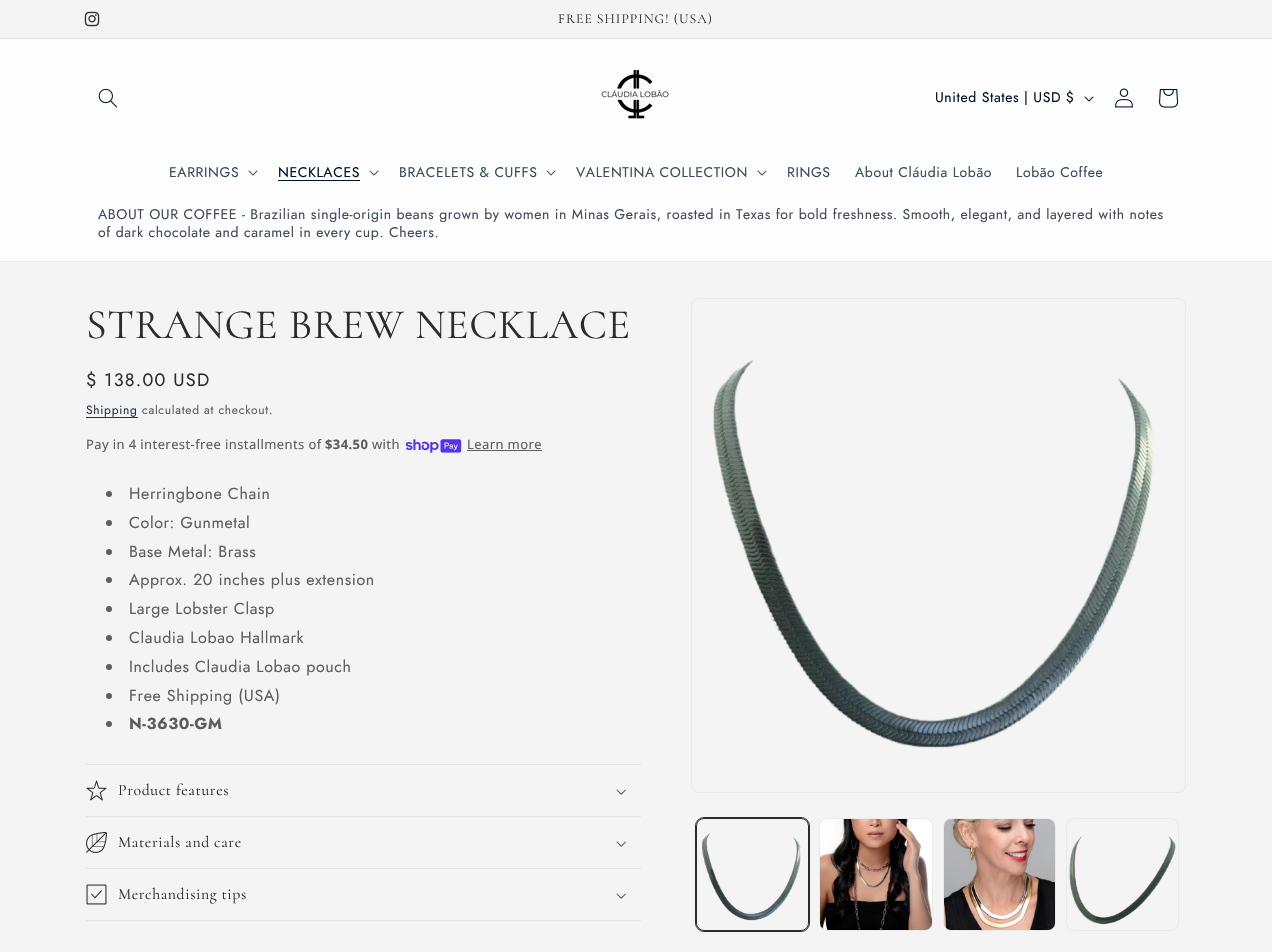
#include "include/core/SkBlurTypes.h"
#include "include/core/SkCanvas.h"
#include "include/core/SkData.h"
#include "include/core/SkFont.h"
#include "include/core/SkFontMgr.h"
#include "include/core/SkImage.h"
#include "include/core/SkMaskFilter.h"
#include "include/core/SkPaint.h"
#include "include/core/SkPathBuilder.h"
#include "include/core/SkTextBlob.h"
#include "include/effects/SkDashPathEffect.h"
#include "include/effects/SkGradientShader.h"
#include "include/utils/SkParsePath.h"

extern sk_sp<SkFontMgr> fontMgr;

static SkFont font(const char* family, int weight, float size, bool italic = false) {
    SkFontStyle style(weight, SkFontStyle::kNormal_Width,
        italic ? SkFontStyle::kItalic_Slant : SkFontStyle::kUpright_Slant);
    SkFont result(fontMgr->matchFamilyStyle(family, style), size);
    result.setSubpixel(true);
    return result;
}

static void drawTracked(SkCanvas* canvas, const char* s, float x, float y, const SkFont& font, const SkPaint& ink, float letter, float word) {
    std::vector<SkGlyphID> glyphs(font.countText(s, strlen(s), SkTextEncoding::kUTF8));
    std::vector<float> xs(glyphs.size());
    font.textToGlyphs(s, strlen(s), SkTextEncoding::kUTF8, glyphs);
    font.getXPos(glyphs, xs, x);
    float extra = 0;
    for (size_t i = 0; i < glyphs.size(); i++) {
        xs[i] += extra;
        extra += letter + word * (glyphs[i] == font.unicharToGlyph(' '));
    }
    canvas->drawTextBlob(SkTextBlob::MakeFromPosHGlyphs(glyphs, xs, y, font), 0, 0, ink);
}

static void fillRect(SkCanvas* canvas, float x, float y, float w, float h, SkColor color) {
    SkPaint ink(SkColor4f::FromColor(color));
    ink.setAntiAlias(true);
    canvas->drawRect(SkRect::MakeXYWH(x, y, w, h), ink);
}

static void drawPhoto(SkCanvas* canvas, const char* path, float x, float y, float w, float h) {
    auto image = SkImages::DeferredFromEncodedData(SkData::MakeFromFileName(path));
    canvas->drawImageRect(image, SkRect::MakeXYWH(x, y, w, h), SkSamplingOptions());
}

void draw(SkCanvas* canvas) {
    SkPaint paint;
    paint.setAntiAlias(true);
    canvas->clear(0xFFF4F4F4);
    fillRect(canvas, 0, 38, 1272, 1, 0xFFE4E4E4);
    drawPhoto(canvas, "assets/img1.png", 84, 11, 16, 16);
    SkFont font1 = font("Cormorant", 400, 13.6f);
    paint.setColor(0xFF2B2C2D);
    drawTracked(canvas, "FREE SHIPPING! (USA)", 558, 23, font1, paint, 1, 0);
    fillRect(canvas, 0, 39, 1272, 222, 0xFFFDFDFD);
    fillRect(canvas, 0, 261, 1272, 1, 0xFFE9EAEC);
    drawPhoto(canvas, "assets/img2.png", 98, 88, 19, 20);
    drawPhoto(canvas, "assets/img3.png", 601, 69, 68, 50);
    SkFont font2 = font("Jost", 400, 14);
    paint.setColor(0xFF001128);
    drawTracked(canvas, "United States | USD $", 935, 102, font2, paint, 0.6f, 0);
    drawPhoto(canvas, "assets/img4.png", 1084, 96, 10, 6);
    drawPhoto(canvas, "assets/img5.png", 1115, 88, 18, 20);
    drawPhoto(canvas, "assets/img6.png", 1159, 89, 20, 19);
    paint.setColor(0xFF3F4C5D);
    drawTracked(canvas, "EARRINGS", 169, 177, font2, paint, 0.6f, 0);
    drawPhoto(canvas, "assets/img7.png", 248, 170, 10, 6);
    paint.setColor(0xFF001128);
    drawTracked(canvas, "NECKLACES", 278, 177, font2, paint, 0.6f, 0);
    fillRect(canvas, 278, 180, 82, 1, 0xFF001128);
    drawPhoto(canvas, "assets/img7.png", 369, 170, 10, 6);
    paint.setColor(0xFF3F4C5D);
    drawTracked(canvas, "BRACELETS & CUFFS", 399, 177, font2, paint, 0.6f, 0);
    drawPhoto(canvas, "assets/img7.png", 546, 170, 10, 6);
    drawTracked(canvas, "VALENTINA COLLECTION", 576, 177, font2, paint, 0.6f, 0);
    drawPhoto(canvas, "assets/img7.png", 757, 170, 10, 6);
    drawTracked(canvas, "RINGS", 787, 177, font2, paint, 0.6f, 0);
    drawTracked(canvas, "About Cláudia Lobão", 855, 177, font2, paint, 0.6f, 0);
    drawTracked(canvas, "Lobão Coffee", 1016, 177, font2, paint, 0.6f, 0);
    drawTracked(canvas, "ABOUT OUR COFFEE - Brazilian single-origin beans grown by women in Minas Gerais, roasted in Texas for bold freshness. Smooth, elegant, and layered with notes", 98, 219, font2, paint, 0.6f, 0);
    drawTracked(canvas, "of dark chocolate and caramel in every cup. Cheers.", 98, 237, font2, paint, 0.6f, 0);
    SkFont font3 = font("Cormorant", 400, 42);
    paint.setColor(0xFF2B2C2D);
    drawTracked(canvas, "STRANGE BREW NECKLACE", 86, 338, font3, paint, 0.6f, 0);
    SkFont font4 = font("Jost", 400, 18);
    drawTracked(canvas, "$ 138.00 USD", 86, 386, font4, paint, 1.25f, 0);
    SkFont font5 = font("Jost", 400, 12);
    paint.setColor(0xFF253347);
    drawTracked(canvas, "Shipping", 86, 414, font5, paint, 0.7f, 0);
    fillRect(canvas, 86, 417, 52, 1, 0xFF253347);
    paint.setColor(0xFF5D5E5F);
    drawTracked(canvas, "calculated at checkout.", 142, 414, font5, paint, 0.7f, 0);
    SkFont font6 = font("Noto Sans", 400, 13);
    drawTracked(canvas, "Pay in 4 interest-free installments of", 86, 449, font6, paint, 0.4f, 0);
    SkFont font7 = font("Noto Sans", 700, 13);
    drawTracked(canvas, "$34.50", 325, 449, font7, paint, 0.4f, 0);
    drawTracked(canvas, "with", 372, 449, font6, paint, 0.4f, 0);
    drawPhoto(canvas, "assets/img8.png", 405, 439, 57, 14);
    drawTracked(canvas, "Learn more", 467, 449, font6, paint, 0.4f, 0);
    fillRect(canvas, 467, 450, 75, 1, 0xFF5D5E5F);
    canvas->drawCircle(109, 494, 3, paint);
    SkFont font8 = font("Jost", 400, 16);
    drawTracked(canvas, "Herringbone Chain", 129, 499, font8, paint, 0.6f, 0);
    canvas->drawCircle(109, 523, 3, paint);
    drawTracked(canvas, "Color: Gunmetal", 129, 528, font8, paint, 0.6f, 0);
    canvas->drawCircle(109, 552, 3, paint);
    drawTracked(canvas, "Base Metal: Brass", 129, 557, font8, paint, 0.6f, 0);
    canvas->drawCircle(109, 580, 3, paint);
    drawTracked(canvas, "Approx. 20 inches plus extension", 129, 585, font8, paint, 0.6f, 0);
    canvas->drawCircle(109, 609, 3, paint);
    drawTracked(canvas, "Large Lobster Clasp", 129, 614, font8, paint, 0.6f, 0);
    canvas->drawCircle(109, 638, 3, paint);
    drawTracked(canvas, "Claudia Lobao Hallmark", 129, 643, font8, paint, 0.6f, 0);
    canvas->drawCircle(109, 667, 3, paint);
    drawTracked(canvas, "Includes Claudia Lobao pouch", 129, 672, font8, paint, 0.6f, 0);
    canvas->drawCircle(109, 696, 3, paint);
    drawTracked(canvas, "Free Shipping (USA)", 129, 701, font8, paint, 0.6f, 0);
    canvas->drawCircle(109, 724, 3, paint);
    SkFont font9 = font("Jost", 700, 16);
    drawTracked(canvas, "N-3630-GM", 129, 729, font9, paint, 0.6f, 0);
    fillRect(canvas, 86, 764, 555, 1, 0xFFE4E4E4);
    fillRect(canvas, 86, 816, 555, 1, 0xFFE4E4E4);
    drawPhoto(canvas, "assets/img9.png", 86, 780, 21, 21);
    SkFont font10 = font("Cormorant", 400, 15.75f);
    paint.setColor(0xFF2B2C2D);
    drawTracked(canvas, "Product features", 118, 795, font10, paint, 0.6f, 0);
    drawPhoto(canvas, "assets/img10.png", 616, 789, 10, 6);
    fillRect(canvas, 86, 868, 555, 1, 0xFFE4E4E4);
    drawPhoto(canvas, "assets/img11.png", 86, 832, 21, 21);
    drawTracked(canvas, "Materials and care", 118, 847, font10, paint, 0.6f, 0);
    drawPhoto(canvas, "assets/img10.png", 616, 841, 10, 6);
    fillRect(canvas, 86, 920, 555, 1, 0xFFE4E4E4);
    drawPhoto(canvas, "assets/img12.png", 86, 884, 21, 21);
    drawTracked(canvas, "Merchandising tips", 118, 899, font10, paint, 0.6f, 0);
    drawPhoto(canvas, "assets/img10.png", 616, 893, 10, 6);
    paint.setStroke(true);
    paint.setStrokeWidth(1);
    paint.setColor(0xFFEAEAEA);
    canvas->drawRoundRect(SkRect::MakeXYWH(691.5f, 298.5f, 494, 494), 7.5f, 7.5f, paint);
    drawPhoto(canvas, "assets/img13.png", 713, 360, 441, 388);
    paint.setColor(0xFF2B2C2D);
    canvas->drawRoundRect(SkRect::MakeXYWH(695.5f, 817.5f, 114, 114), 8.5f, 8.5f, paint);
    canvas->drawRoundRect(SkRect::MakeXYWH(696.5f, 818.5f, 112, 112), 7.5f, 7.5f, paint);
    drawPhoto(canvas, "assets/img14.png", 701, 832, 100, 89);
    paint.setColor(0xFFEAEAEA);
    canvas->drawRoundRect(SkRect::MakeXYWH(819.5f, 818.5f, 113, 112), 7.5f, 7.5f, paint);
    drawPhoto(canvas, "assets/img15.png", 820, 819, 112, 111);
    canvas->drawRoundRect(SkRect::MakeXYWH(943.5f, 818.5f, 112, 112), 7.5f, 7.5f, paint);
    drawPhoto(canvas, "assets/img16.png", 944, 819, 111, 111);
    canvas->drawRoundRect(SkRect::MakeXYWH(1066.5f, 818.5f, 112, 112), 7.5f, 7.5f, paint);
    drawPhoto(canvas, "assets/img17.png", 1069, 836, 107, 89);
}
